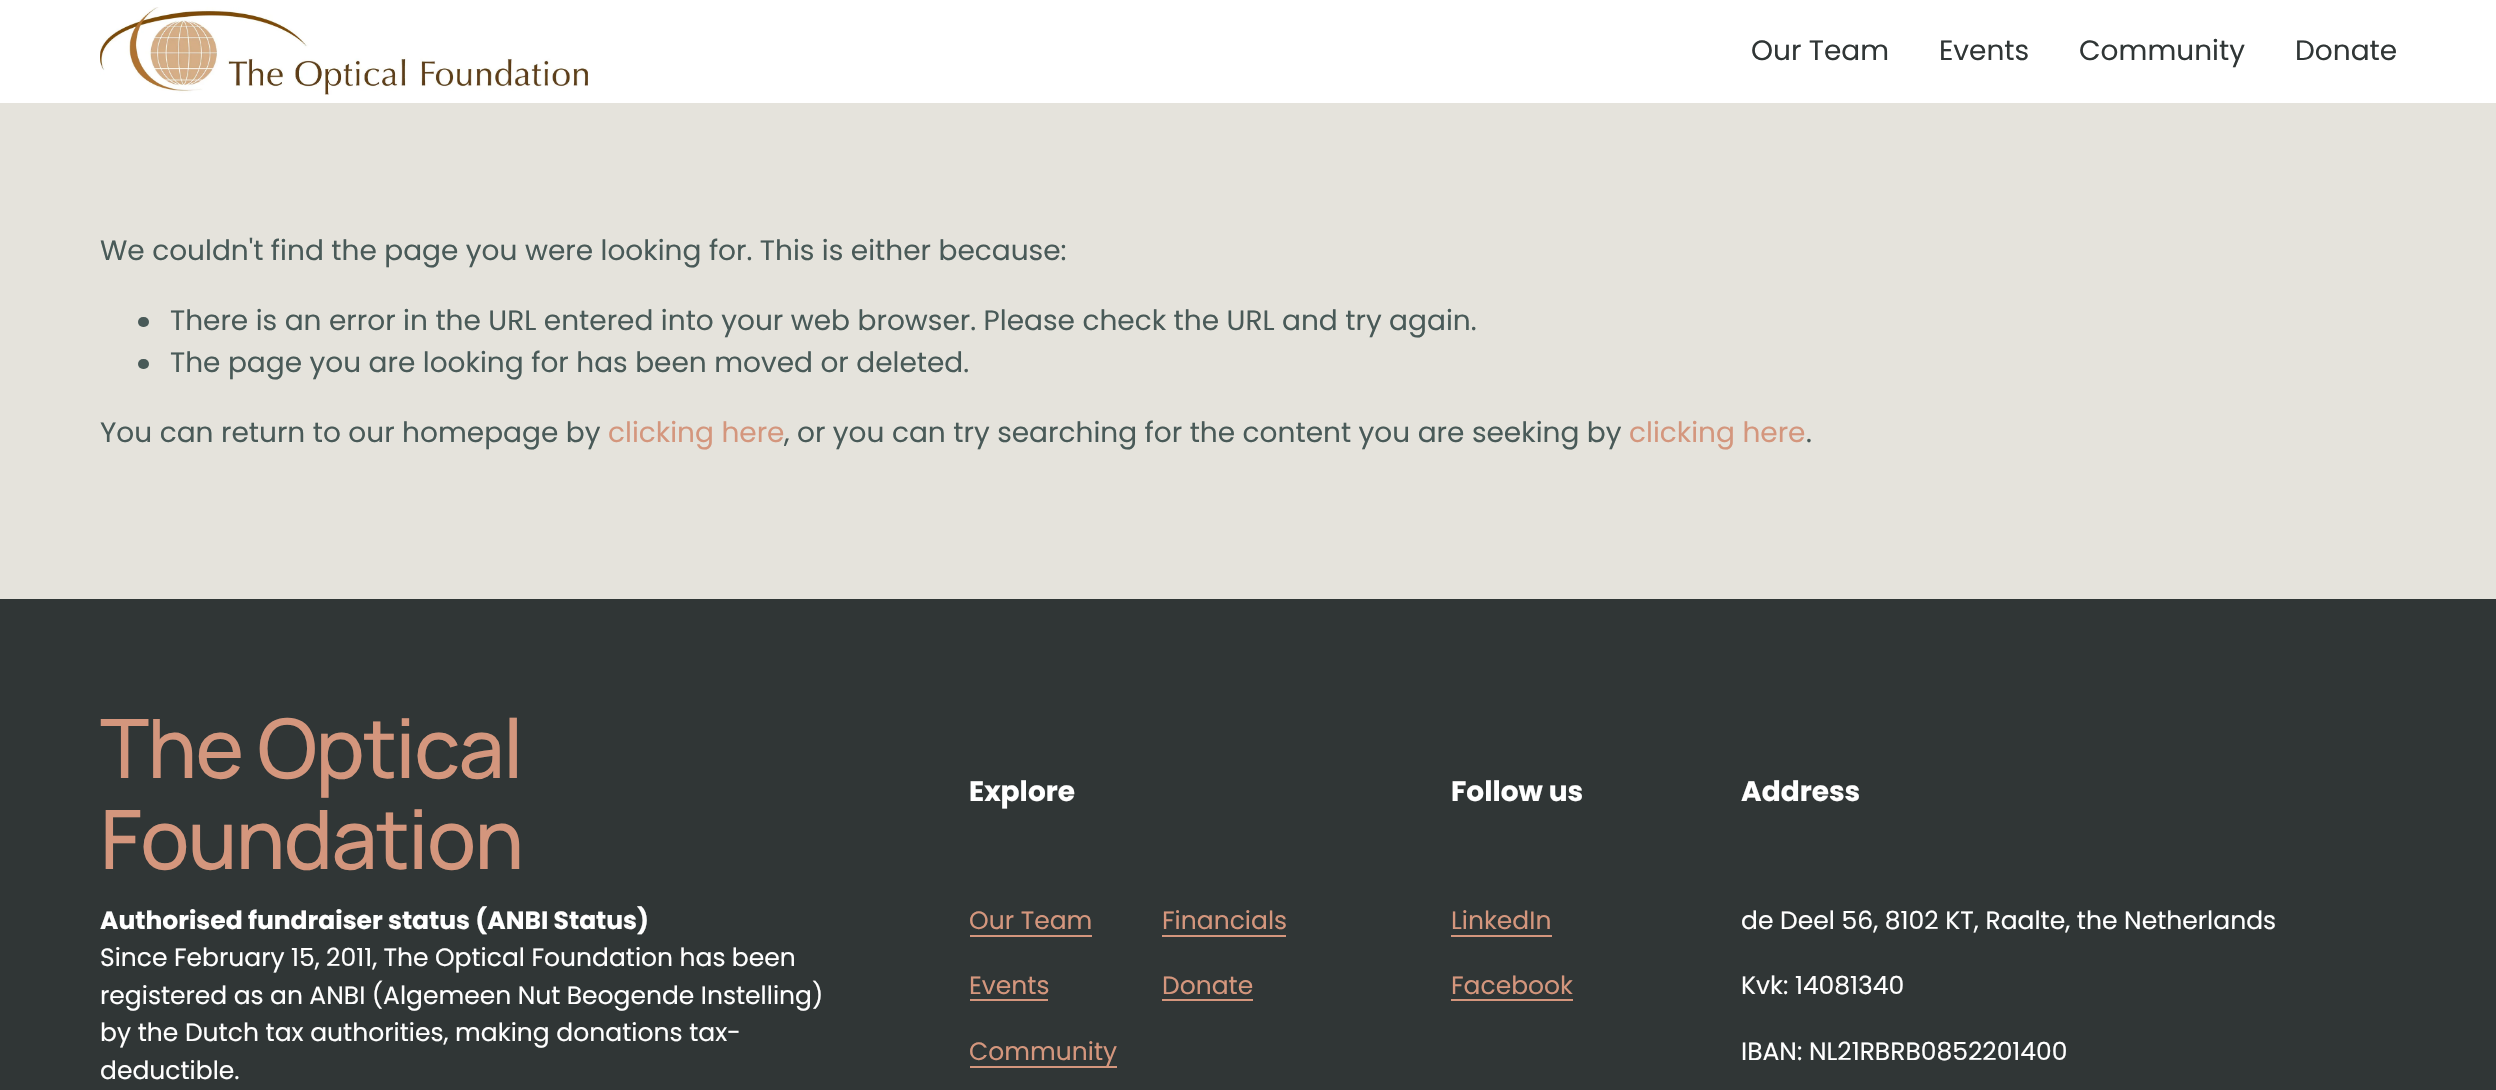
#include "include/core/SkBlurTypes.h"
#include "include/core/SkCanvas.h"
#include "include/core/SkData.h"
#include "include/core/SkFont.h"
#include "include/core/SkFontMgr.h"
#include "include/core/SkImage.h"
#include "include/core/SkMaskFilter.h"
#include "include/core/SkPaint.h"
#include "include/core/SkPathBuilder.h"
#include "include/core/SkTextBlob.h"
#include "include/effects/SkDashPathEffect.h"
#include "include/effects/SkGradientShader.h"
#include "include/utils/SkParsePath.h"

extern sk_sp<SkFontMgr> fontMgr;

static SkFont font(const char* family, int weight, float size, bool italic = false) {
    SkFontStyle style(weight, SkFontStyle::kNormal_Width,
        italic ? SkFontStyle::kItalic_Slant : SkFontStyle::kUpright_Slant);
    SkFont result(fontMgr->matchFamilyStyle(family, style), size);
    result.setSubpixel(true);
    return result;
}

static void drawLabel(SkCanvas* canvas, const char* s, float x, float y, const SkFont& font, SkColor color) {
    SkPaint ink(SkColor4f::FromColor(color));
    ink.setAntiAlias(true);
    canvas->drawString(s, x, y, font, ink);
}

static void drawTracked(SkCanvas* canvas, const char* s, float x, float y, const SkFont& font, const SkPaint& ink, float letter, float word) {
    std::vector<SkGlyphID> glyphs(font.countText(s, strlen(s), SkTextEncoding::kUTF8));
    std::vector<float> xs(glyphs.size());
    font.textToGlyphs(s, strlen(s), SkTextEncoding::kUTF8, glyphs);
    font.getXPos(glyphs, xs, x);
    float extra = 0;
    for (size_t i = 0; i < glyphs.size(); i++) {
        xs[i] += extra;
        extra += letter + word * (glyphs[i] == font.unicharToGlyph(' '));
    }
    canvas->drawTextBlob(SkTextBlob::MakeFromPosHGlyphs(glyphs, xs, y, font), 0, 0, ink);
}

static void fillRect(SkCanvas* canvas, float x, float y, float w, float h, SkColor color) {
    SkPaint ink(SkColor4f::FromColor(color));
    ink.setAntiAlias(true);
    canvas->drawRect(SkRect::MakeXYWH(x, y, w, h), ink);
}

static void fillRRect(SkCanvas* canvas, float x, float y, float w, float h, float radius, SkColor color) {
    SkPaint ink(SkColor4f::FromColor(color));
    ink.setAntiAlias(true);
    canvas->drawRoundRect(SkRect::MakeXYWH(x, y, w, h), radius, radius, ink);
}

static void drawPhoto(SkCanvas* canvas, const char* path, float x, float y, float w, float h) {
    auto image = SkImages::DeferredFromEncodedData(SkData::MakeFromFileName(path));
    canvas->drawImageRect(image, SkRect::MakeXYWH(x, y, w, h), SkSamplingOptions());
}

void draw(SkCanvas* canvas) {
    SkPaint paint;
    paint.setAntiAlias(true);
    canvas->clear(0xFFE5E3DC);
    fillRect(canvas, 0, 0, 2496, 103, 0xFFFFFFFF);
    drawPhoto(canvas, "assets/img1.png", 100, 7, 488, 88);
    SkFont font1 = font("Poppins", 400, 28);
    drawLabel(canvas, "Our Team", 1751, 60, font1, 0xFF303636);
    drawLabel(canvas, "Events", 1939, 60, font1, 0xFF303636);
    drawLabel(canvas, "Community", 2079, 60, font1, 0xFF303636);
    drawLabel(canvas, "Donate", 2295, 60, font1, 0xFF303636);
    drawLabel(canvas, "We couldn't find the page you were looking for. This is either because:", 100, 260, font1, 0xFF495A58);
    fillRRect(canvas, 138, 317, 11, 10, 5, 0xFF495A58);
    drawLabel(canvas, "There is an error in the URL entered into your web browser. Please check the URL and try again.", 170, 330, font1, 0xFF495A58);
    fillRRect(canvas, 138, 359, 11, 10, 5, 0xFF495A58);
    drawLabel(canvas, "The page you are looking for has been moved or deleted.", 170, 372, font1, 0xFF495A58);
    drawLabel(canvas, "You can return to our homepage by", 100, 442, font1, 0xFF495A58);
    drawLabel(canvas, "clicking here", 608, 442, font1, 0xFFD4967D);
    drawLabel(canvas, ", or you can try searching for the content you are seeking by", 784, 442, font1, 0xFF495A58);
    drawLabel(canvas, "clicking here", 1629, 442, font1, 0xFFD4967D);
    drawLabel(canvas, ".", 1806, 442, font1, 0xFF495A58);
    fillRect(canvas, 0, 599, 2496, 491, 0xFF303636);
    SkFont font2 = font("Manrope", 500, 82);
    paint.setColor(0xFFD4967D);
    drawTracked(canvas, "The Optical", 100, 778, font2, paint, -1.6f, 0);
    drawTracked(canvas, "Foundation", 100, 869, font2, paint, -1.6f, 0);
    SkFont font3 = font("Poppins", 700, 28);
    drawLabel(canvas, "Explore", 969, 801, font3, 0xFFFFFFFF);
    drawLabel(canvas, "Follow us", 1451, 801, font3, 0xFFFFFFFF);
    drawLabel(canvas, "Address", 1741, 801, font3, 0xFFFFFFFF);
    SkFont font4 = font("Poppins", 700, 25);
    drawLabel(canvas, "Authorised fundraiser status (ANBI Status)", 100, 929, font4, 0xFFFFFFFF);
    SkFont font5 = font("Poppins", 400, 25);
    paint.setColor(0xFFFFFFFF);
    drawTracked(canvas, "Since February 15, 2011, The Optical Foundation has been", 100, 966, font5, paint, 0, -0.25f);
    drawTracked(canvas, "registered as an ANBI (Algemeen Nut Beogende Instelling)", 100, 1004, font5, paint, 0, -0.25f);
    drawLabel(canvas, "by the Dutch tax authorities, making donations tax-", 100, 1041, font5, 0xFFFFFFFF);
    drawLabel(canvas, "deductible.", 100, 1079, font5, 0xFFFFFFFF);
    drawLabel(canvas, "Our Team", 969, 929, font5, 0xFFD4967D);
    fillRect(canvas, 970, 935, 122, 2, 0xFFD4967D);
    drawLabel(canvas, "Events", 969, 994, font5, 0xFFD4967D);
    fillRect(canvas, 970, 999, 78, 2, 0xFFD4967D);
    fillRect(canvas, 970, 1066, 147, 2, 0xFFD4967D);
    drawLabel(canvas, "Community", 969, 1060, font5, 0xFFD4967D);
    drawLabel(canvas, "Financials", 1162, 929, font5, 0xFFD4967D);
    fillRect(canvas, 1162, 935, 124, 2, 0xFFD4967D);
    drawLabel(canvas, "Donate", 1162, 994, font5, 0xFFD4967D);
    fillRect(canvas, 1162, 999, 91, 2, 0xFFD4967D);
    drawLabel(canvas, "LinkedIn", 1451, 929, font5, 0xFFD4967D);
    fillRect(canvas, 1451, 935, 101, 2, 0xFFD4967D);
    drawLabel(canvas, "Facebook", 1451, 994, font5, 0xFFD4967D);
    fillRect(canvas, 1451, 999, 122, 2, 0xFFD4967D);
    drawLabel(canvas, "de Deel 56, 8102 KT, Raalte, the Netherlands", 1741, 929, font5, 0xFFFFFFFF);
    drawLabel(canvas, "Kvk: 14081340", 1741, 994, font5, 0xFFFFFFFF);
    drawLabel(canvas, "IBAN: NL21RBRB0852201400", 1741, 1060, font5, 0xFFFFFFFF);
}
